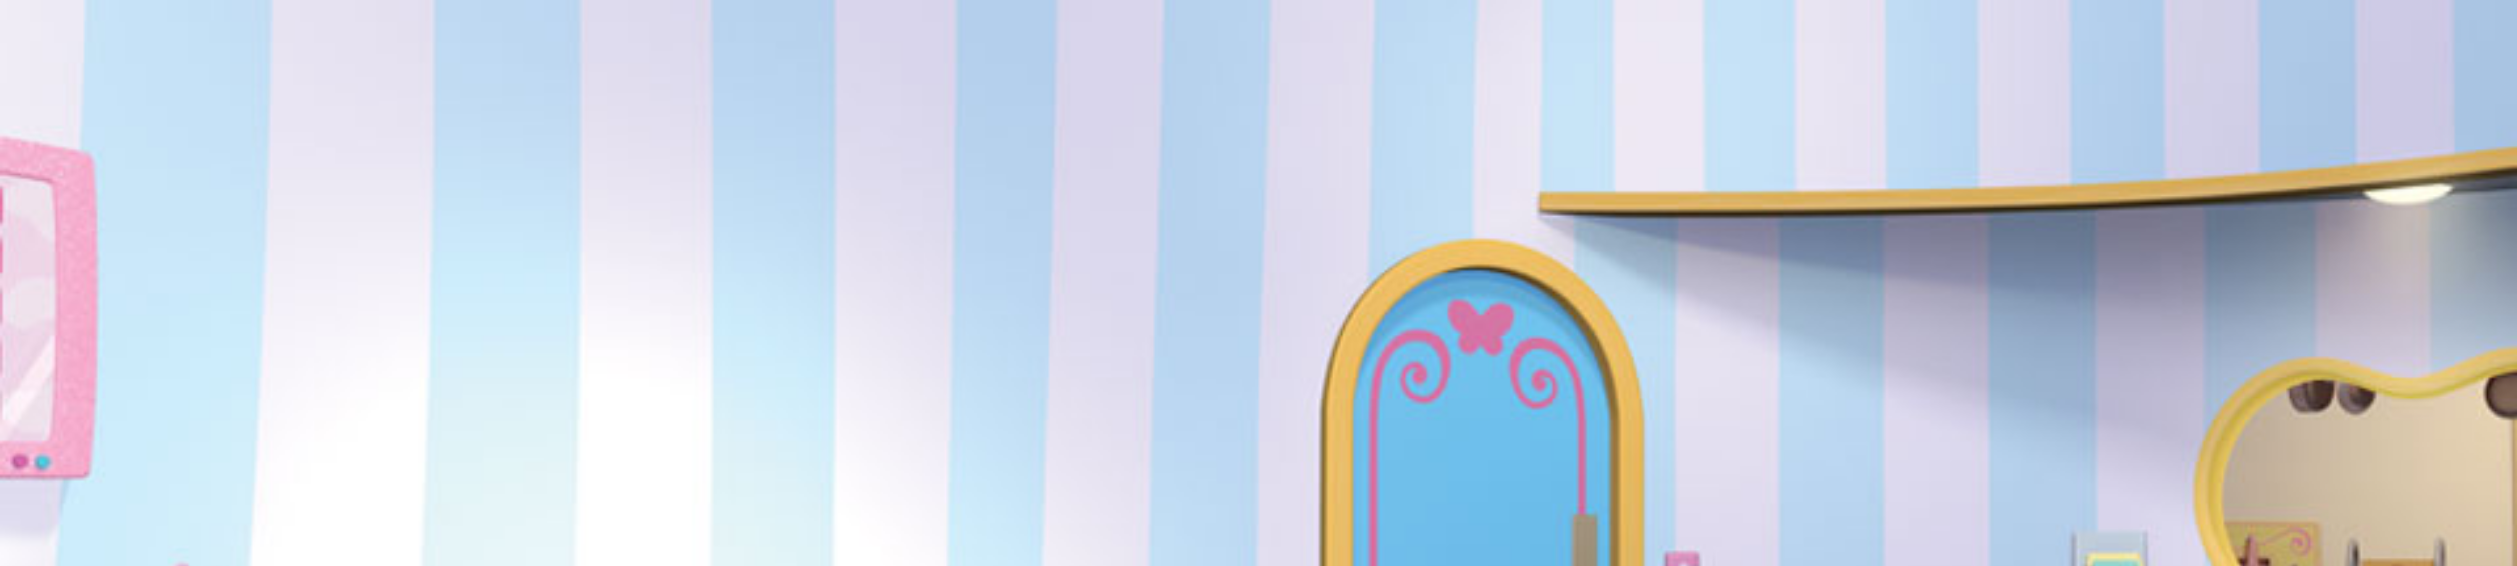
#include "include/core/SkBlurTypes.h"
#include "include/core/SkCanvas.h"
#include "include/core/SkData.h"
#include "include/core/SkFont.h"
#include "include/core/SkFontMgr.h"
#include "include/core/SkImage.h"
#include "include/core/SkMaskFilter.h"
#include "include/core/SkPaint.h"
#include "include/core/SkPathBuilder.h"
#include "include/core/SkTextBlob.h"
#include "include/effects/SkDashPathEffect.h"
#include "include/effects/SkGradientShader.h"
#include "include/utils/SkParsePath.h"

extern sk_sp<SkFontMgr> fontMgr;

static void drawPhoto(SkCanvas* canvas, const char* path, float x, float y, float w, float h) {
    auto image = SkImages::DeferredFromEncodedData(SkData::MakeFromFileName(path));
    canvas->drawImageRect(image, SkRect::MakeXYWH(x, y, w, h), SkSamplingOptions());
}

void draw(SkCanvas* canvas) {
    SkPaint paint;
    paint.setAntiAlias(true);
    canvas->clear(0xFFFFFFFF);
    drawPhoto(canvas, "assets/img1.png", 0, 0, 2517, 566);
}
